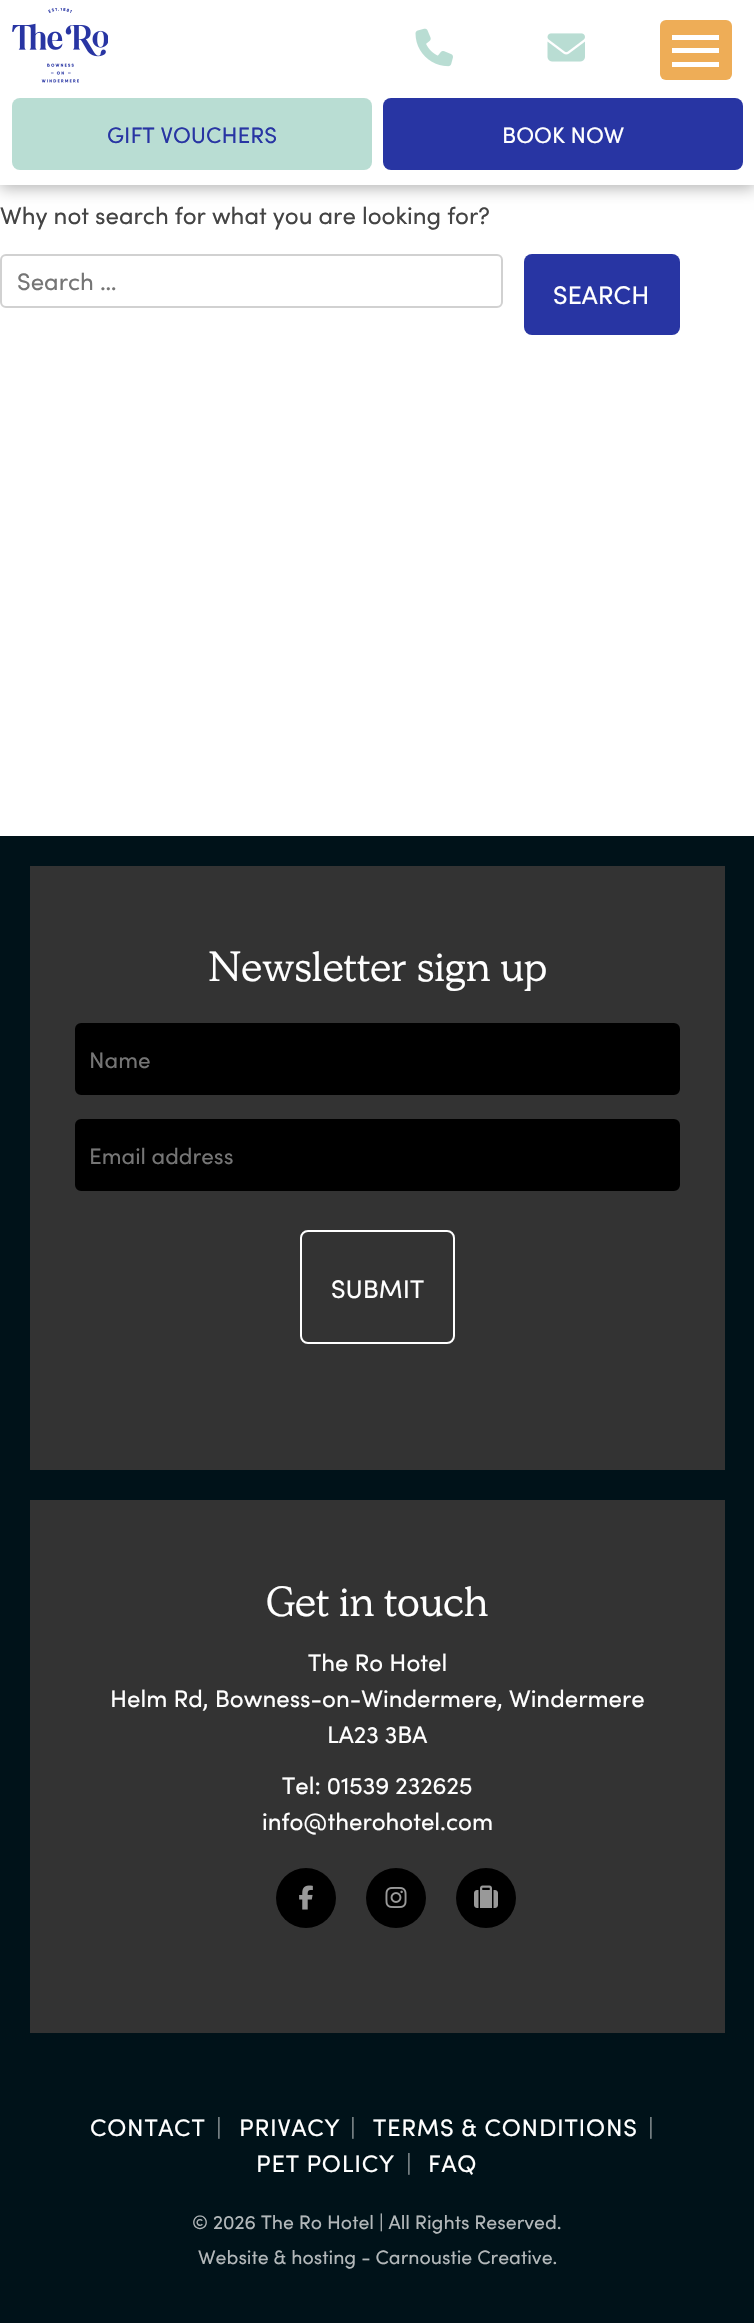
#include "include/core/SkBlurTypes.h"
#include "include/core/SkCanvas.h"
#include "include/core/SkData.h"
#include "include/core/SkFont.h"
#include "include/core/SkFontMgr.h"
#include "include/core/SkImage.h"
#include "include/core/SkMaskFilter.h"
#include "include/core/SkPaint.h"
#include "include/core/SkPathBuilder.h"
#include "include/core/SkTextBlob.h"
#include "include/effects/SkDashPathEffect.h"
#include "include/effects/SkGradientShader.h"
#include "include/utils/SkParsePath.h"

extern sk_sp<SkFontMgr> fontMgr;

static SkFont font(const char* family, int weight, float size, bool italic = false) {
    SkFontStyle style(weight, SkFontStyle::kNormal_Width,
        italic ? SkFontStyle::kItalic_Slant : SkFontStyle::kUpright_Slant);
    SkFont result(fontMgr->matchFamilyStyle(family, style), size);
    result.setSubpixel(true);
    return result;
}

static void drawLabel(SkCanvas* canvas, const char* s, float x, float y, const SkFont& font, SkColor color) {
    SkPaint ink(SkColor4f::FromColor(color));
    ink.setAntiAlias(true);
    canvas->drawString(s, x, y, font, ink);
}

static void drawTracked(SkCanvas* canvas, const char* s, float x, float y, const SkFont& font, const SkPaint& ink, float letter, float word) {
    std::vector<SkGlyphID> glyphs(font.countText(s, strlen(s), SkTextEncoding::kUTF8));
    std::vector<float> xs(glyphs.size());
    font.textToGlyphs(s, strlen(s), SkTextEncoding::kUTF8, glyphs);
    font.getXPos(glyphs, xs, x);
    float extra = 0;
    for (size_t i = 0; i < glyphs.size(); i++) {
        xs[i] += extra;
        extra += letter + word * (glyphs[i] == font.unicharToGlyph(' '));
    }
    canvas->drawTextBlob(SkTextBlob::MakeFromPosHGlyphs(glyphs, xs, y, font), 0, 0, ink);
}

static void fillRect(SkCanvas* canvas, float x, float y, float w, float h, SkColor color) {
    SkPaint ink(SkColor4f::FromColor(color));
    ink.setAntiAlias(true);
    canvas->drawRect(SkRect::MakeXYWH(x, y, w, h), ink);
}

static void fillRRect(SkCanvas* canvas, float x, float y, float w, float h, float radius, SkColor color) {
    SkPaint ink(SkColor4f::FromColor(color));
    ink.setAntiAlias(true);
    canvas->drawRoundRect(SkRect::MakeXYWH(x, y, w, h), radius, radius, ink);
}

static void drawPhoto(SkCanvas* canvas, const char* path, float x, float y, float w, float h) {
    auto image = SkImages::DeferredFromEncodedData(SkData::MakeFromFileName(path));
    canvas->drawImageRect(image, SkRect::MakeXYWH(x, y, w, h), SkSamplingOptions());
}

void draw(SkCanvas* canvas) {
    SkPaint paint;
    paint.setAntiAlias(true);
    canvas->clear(0xFFFFFFFF);
    paint.setColor(0x4D000000);
    paint.setMaskFilter(SkMaskFilter::MakeBlur(kNormal_SkBlurStyle, 7.5f));
    canvas->drawRect(SkRect::MakeXYWH(0, 3, 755, 185), paint);
    paint.setMaskFilter(nullptr);
    fillRect(canvas, 0, 0, 754, 185, 0xFFFFFFFF);
    drawPhoto(canvas, "assets/img1.png", 12, 8, 96, 75);
    drawPhoto(canvas, "assets/img2.png", 415, 28, 38, 39);
    drawPhoto(canvas, "assets/img3.png", 547, 33, 38, 29);
    fillRRect(canvas, 660, 20, 72, 60, 6, 0xFFEEAD57);
    fillRect(canvas, 672, 35, 47, 5, 0xFFFFFFFF);
    fillRect(canvas, 672, 48, 47, 5, 0xFFFFFFFF);
    fillRect(canvas, 672, 62, 47, 5, 0xFFFFFFFF);
    fillRRect(canvas, 12, 98, 360, 72, 8, 0xFFB9DDD3);
    SkFont font1 = font("Sofia", 400, 22.5f);
    drawLabel(canvas, "GIFT VOUCHERS", 107, 143, font1, 0xFF2835A3);
    fillRRect(canvas, 383, 98, 360, 72, 8, 0xFF2835A3);
    drawLabel(canvas, "BOOK NOW", 502, 143, font1, 0xFFFFFFFF);
    SkFont font2 = font("Sofia", 400, 24);
    drawLabel(canvas, "Why not search for what you are looking for?", 0, 224, font2, 0xFF444444);
    paint.setStroke(true);
    paint.setStrokeWidth(2);
    paint.setColor(0xFFD1D1D1);
    canvas->drawRoundRect(SkRect::MakeXYWH(1, 255, 501, 52), 5, 5, paint);
    drawLabel(canvas, "Search …", 17, 290, font2, 0xFF757575);
    fillRRect(canvas, 524, 254, 156, 81, 8, 0xFF2835A3);
    SkFont font3 = font("Sofia", 400, 25.5f);
    drawLabel(canvas, "SEARCH", 553, 304, font3, 0xFFFFFFFF);
    fillRect(canvas, 0, 836, 754, 1487, 0xFF001219);
    fillRect(canvas, 30, 866, 695, 604, 0xFF333333);
    SkFont font4 = font("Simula", 400, 42);
    drawLabel(canvas, "Newsletter sign up", 208, 981, font4, 0xFFFFFFFF);
    paint.setStroke(false);
    paint.setColor(0xFF000000);
    canvas->drawRoundRect(SkRect::MakeXYWH(76, 1024, 603, 70), 5, 5, paint);
    paint.setStroke(true);
    canvas->drawRoundRect(SkRect::MakeXYWH(76, 1024, 603, 70), 5, 5, paint);
    drawLabel(canvas, "Name", 89, 1068, font1, 0xFF757575);
    paint.setStroke(false);
    canvas->drawRoundRect(SkRect::MakeXYWH(76, 1120, 603, 70), 5, 5, paint);
    paint.setStroke(true);
    canvas->drawRoundRect(SkRect::MakeXYWH(76, 1120, 603, 70), 5, 5, paint);
    drawLabel(canvas, "Email address", 89, 1164, font1, 0xFF757575);
    paint.setColor(0xFFFFFFFF);
    canvas->drawRoundRect(SkRect::MakeXYWH(301, 1231, 153, 112), 7, 7, paint);
    drawLabel(canvas, "SUBMIT", 331, 1298, font3, 0xFFFFFFFF);
    fillRect(canvas, 30, 1500, 695, 533, 0xFF333333);
    drawLabel(canvas, "Get in touch", 266, 1616, font4, 0xFFFFFFFF);
    drawLabel(canvas, "The Ro Hotel", 308, 1671, font2, 0xFFFFFFFF);
    drawLabel(canvas, "Helm Rd, Bowness-on-Windermere, Windermere", 110, 1707, font2, 0xFFFFFFFF);
    drawLabel(canvas, "LA23 3BA", 327, 1743, font2, 0xFFFFFFFF);
    drawLabel(canvas, "Tel: 01539 232625", 282, 1794, font2, 0xFFFFFFFF);
    drawLabel(canvas, "info@therohotel.com", 262, 1830, font2, 0xFFFFFFFF);
    paint.setStroke(false);
    paint.setColor(0xFF000000);
    canvas->drawCircle(306, 1898, 30, paint);
    drawPhoto(canvas, "assets/img4.png", 299, 1885, 14, 25);
    canvas->drawCircle(396, 1898, 30, paint);
    drawPhoto(canvas, "assets/img5.png", 385, 1887, 22, 21);
    canvas->drawCircle(486, 1898, 30, paint);
    drawPhoto(canvas, "assets/img6.png", 474, 1885, 24, 23);
    paint.setColor(0xFFFFFFFF);
    drawTracked(canvas, "CONTACT", 90, 2136, font2, paint, 0.75f, 0);
    drawLabel(canvas, "|", 216, 2136, font2, 0xFF80898C);
    drawTracked(canvas, "PRIVACY", 239, 2136, font2, paint, 0.75f, 0);
    drawLabel(canvas, "|", 350, 2136, font2, 0xFF80898C);
    drawTracked(canvas, "TERMS & CONDITIONS", 373, 2136, font2, paint, 0.75f, 0);
    drawLabel(canvas, "|", 648, 2136, font2, 0xFF80898C);
    drawTracked(canvas, "PET POLICY", 256, 2172, font2, paint, 0.75f, 0);
    drawLabel(canvas, "|", 406, 2172, font2, 0xFF80898C);
    drawTracked(canvas, "FAQ", 428, 2172, font2, paint, 0.75f, 0);
    SkFont font5 = font("Sofia", 400, 19.5f);
    drawLabel(canvas, "© 2026 The Ro Hotel | All Rights Reserved.", 192, 2229, font5, 0xFFB3B8BA);
    drawLabel(canvas, "Website & hosting - Carnoustie Creative.", 198, 2264, font5, 0xFFB3B8BA);
}
